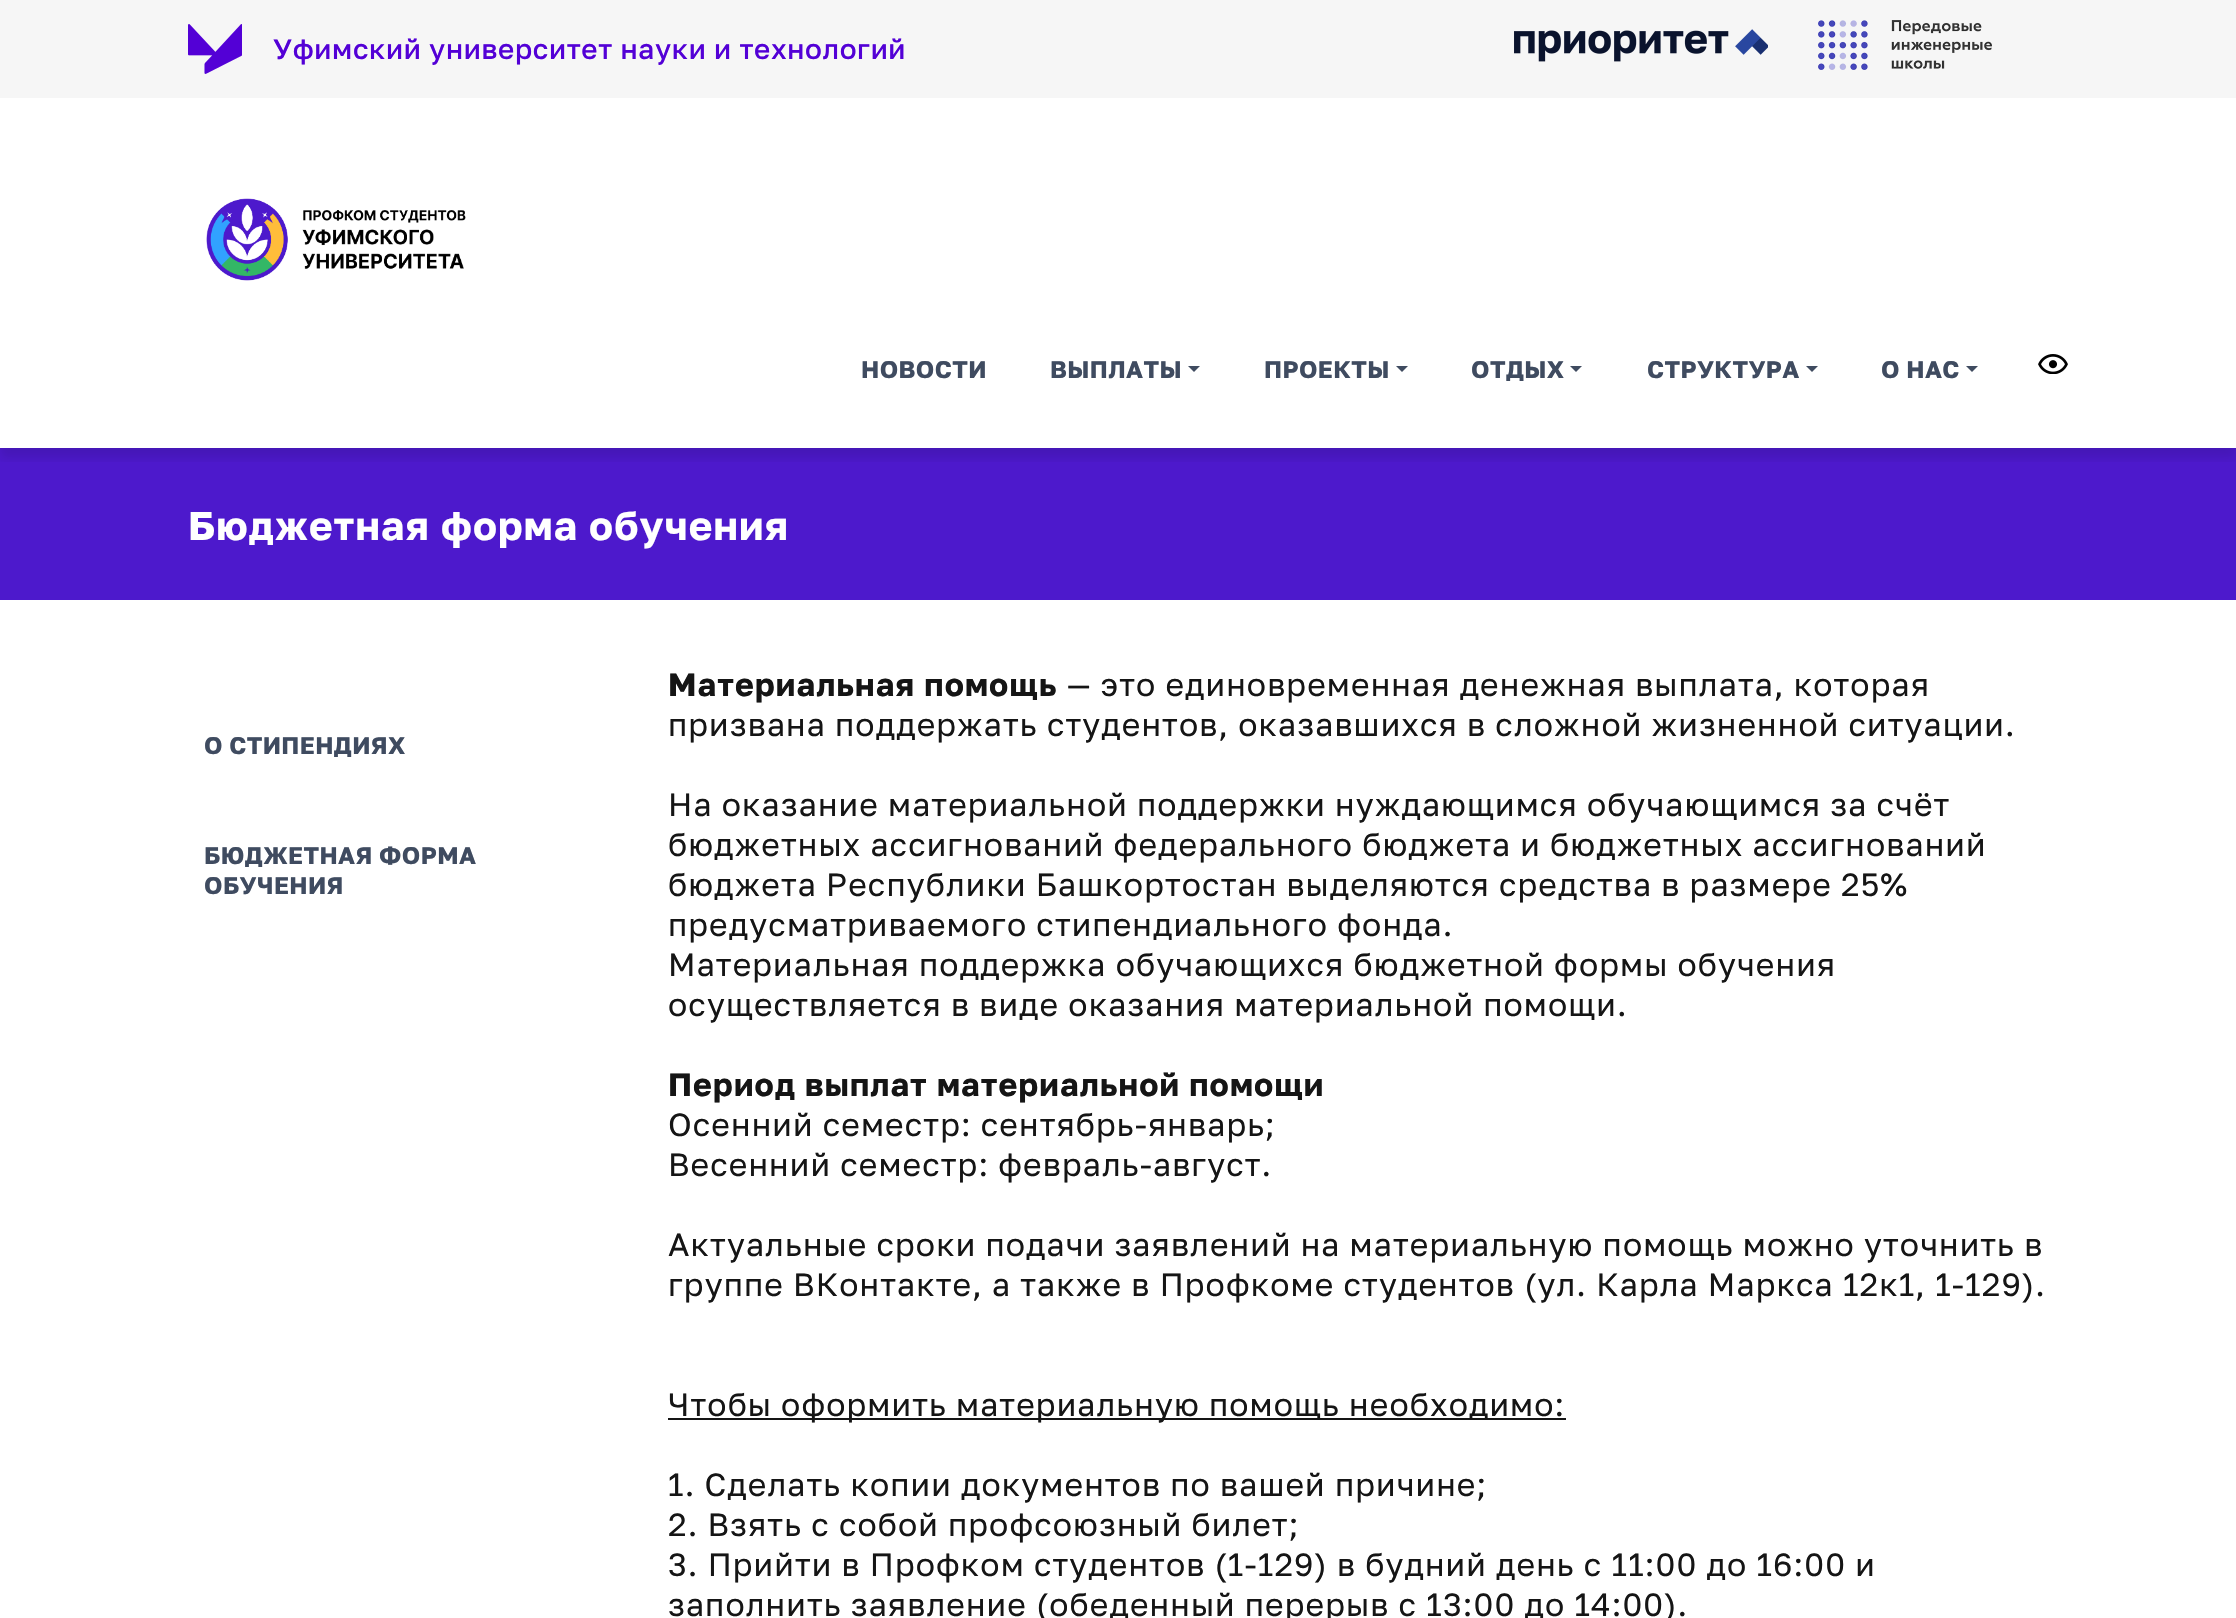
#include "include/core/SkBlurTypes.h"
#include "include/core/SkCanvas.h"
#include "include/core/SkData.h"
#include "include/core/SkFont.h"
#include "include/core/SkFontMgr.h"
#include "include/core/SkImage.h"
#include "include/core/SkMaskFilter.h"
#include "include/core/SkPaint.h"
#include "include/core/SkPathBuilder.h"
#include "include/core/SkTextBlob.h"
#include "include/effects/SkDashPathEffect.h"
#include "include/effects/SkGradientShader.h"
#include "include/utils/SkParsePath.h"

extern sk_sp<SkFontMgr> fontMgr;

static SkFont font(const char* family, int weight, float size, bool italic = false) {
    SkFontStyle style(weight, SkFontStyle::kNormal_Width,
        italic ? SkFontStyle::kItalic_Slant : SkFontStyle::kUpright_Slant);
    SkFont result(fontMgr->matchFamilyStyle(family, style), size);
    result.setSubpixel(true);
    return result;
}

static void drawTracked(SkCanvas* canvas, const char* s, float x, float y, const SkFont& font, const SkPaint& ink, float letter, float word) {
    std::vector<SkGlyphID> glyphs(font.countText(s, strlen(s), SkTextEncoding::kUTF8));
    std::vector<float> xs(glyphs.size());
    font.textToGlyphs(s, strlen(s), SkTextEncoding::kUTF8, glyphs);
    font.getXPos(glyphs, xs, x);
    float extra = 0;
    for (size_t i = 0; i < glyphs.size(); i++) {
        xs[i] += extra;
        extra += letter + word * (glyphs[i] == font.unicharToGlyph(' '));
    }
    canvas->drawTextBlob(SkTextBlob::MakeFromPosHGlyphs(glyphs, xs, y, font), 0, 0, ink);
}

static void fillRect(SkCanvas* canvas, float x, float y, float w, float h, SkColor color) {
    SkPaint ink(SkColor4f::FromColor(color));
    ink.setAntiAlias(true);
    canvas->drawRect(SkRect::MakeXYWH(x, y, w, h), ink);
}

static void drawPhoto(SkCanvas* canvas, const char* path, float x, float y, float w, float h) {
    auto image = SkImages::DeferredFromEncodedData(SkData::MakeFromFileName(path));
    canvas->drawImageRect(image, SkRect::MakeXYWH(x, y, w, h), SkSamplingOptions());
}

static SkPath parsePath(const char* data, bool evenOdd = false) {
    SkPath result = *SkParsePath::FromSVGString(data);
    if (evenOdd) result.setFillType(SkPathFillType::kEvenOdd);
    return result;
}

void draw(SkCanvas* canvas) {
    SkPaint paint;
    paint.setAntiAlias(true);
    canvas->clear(0xFFFFFFFF);
    fillRect(canvas, 0, 0, 2236, 98, 0xFFF6F6F6);
    drawPhoto(canvas, "assets/img1.png", 188, 24, 54, 50);
    SkFont font1 = font("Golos", 500, 28);
    paint.setColor(0xFF5300D6);
    drawTracked(canvas, "Уфимский университет науки и технологий", 273, 59, font1, paint, 0.65f, 0);
    drawPhoto(canvas, "assets/img2.png", 1514, 29, 254, 33);
    drawPhoto(canvas, "assets/img3.png", 1818, 20, 174, 50);
    fillRect(canvas, 0, 448, 2236, 152, 0xFF4D19CC);
    canvas->save();
    canvas->clipRect(SkRect::MakeXYWH(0, 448, 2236, 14));
    paint.setColor(0x1A000000);
    paint.setMaskFilter(SkMaskFilter::MakeBlur(kNormal_SkBlurStyle, 5));
    canvas->drawRect(SkRect::MakeXYWH(0, 108, 2236, 350), paint);
    paint.setMaskFilter(nullptr);
    canvas->restore();
    drawPhoto(canvas, "assets/img4.png", 206, 198, 260, 83);
    SkFont font2 = font("Golos", 700, 24);
    paint.setColor(0xFF3F4B60);
    drawTracked(canvas, "НОВОСТИ", 861, 378, font2, paint, 0.4f, 0);
    drawTracked(canvas, "ВЫПЛАТЫ", 1050, 378, font2, paint, 0.4f, 0);
    canvas->drawPath(parsePath("M1188 366H1200L1194 372Z"), paint);
    drawTracked(canvas, "ПРОЕКТЫ", 1264, 378, font2, paint, 0.4f, 0);
    canvas->drawPath(parsePath("M1396 366H1408L1402 372Z"), paint);
    drawTracked(canvas, "ОТДЫХ", 1471, 378, font2, paint, 0.4f, 0);
    canvas->drawPath(parsePath("M1570 366H1582L1576 372Z"), paint);
    drawTracked(canvas, "СТРУКТУРА", 1647, 378, font2, paint, 0.4f, 0);
    canvas->drawPath(parsePath("M1806 366H1818L1812 372Z"), paint);
    drawTracked(canvas, "О НАС", 1881, 378, font2, paint, 0.4f, 0);
    canvas->drawPath(parsePath("M1966 366H1978L1972 372Z"), paint);
    drawPhoto(canvas, "assets/img5.png", 2038, 354, 30, 20);
    SkFont font3 = font("Golos", 700, 40);
    paint.setColor(0xFFFFFFFF);
    drawTracked(canvas, "Бюджетная форма обучения", 188, 540, font3, paint, 1.12f, 0);
    paint.setColor(0xFF3F4B60);
    drawTracked(canvas, "О СТИПЕНДИЯХ", 204, 754, font2, paint, 0.4f, 0);
    drawTracked(canvas, "БЮДЖЕТНАЯ ФОРМА", 204, 864, font2, paint, 0.4f, 0);
    drawTracked(canvas, "ОБУЧЕНИЯ", 204, 894, font2, paint, 0.4f, 0);
    SkFont font4 = font("Golos", 700, 32);
    paint.setColor(0xFF151515);
    drawTracked(canvas, "Материальная помощь", 668, 696, font4, paint, 1.12f, 0);
    SkFont font5 = font("Golos", 400, 32);
    drawTracked(canvas, "— это единовременная денежная выплата, которая", 1067, 696, font5, paint, 1.12f, 0);
    drawTracked(canvas, "призвана поддержать студентов, оказавшихся в сложной жизненной ситуации.", 668, 736, font5, paint, 1.12f, 0);
    drawTracked(canvas, "На оказание материальной поддержки нуждающимся обучающимся за счёт", 668, 816, font5, paint, 1.12f, 0);
    drawTracked(canvas, "бюджетных ассигнований федерального бюджета и бюджетных ассигнований", 668, 856, font5, paint, 1.12f, 0);
    drawTracked(canvas, "бюджета Республики Башкортостан выделяются средства в размере 25%", 668, 896, font5, paint, 1.12f, 0);
    drawTracked(canvas, "предусматриваемого стипендиального фонда.", 668, 936, font5, paint, 1.12f, 0);
    drawTracked(canvas, "Материальная поддержка обучающихся бюджетной формы обучения", 668, 976, font5, paint, 1.12f, 0);
    drawTracked(canvas, "осуществляется в виде оказания материальной помощи.", 668, 1016, font5, paint, 1.12f, 0);
    drawTracked(canvas, "Период выплат материальной помощи", 668, 1096, font4, paint, 1.12f, 0);
    drawTracked(canvas, "Осенний семестр: сентябрь-январь;", 668, 1136, font5, paint, 1.12f, 0);
    drawTracked(canvas, "Весенний семестр: февраль-август.", 668, 1176, font5, paint, 1.12f, 0);
    drawTracked(canvas, "Актуальные сроки подачи заявлений на материальную помощь можно уточнить в", 668, 1256, font5, paint, 1.12f, 0);
    drawTracked(canvas, "группе ВКонтакте, а также в Профкоме студентов (ул. Карла Маркса 12к1, 1-129).", 668, 1296, font5, paint, 1.12f, 0);
    fillRect(canvas, 668, 1418, 898, 2, 0xFF151515);
    drawTracked(canvas, "Чтобы оформить материальную помощь необходимо:", 668, 1416, font5, paint, 1.12f, 0);
    drawTracked(canvas, "1. Сделать копии документов по вашей причине;", 668, 1496, font5, paint, 1.12f, 0);
    drawTracked(canvas, "2. Взять с собой профсоюзный билет;", 668, 1536, font5, paint, 1.12f, 0);
    drawTracked(canvas, "3. Прийти в Профком студентов (1-129) в будний день с 11:00 до 16:00 и", 668, 1576, font5, paint, 1.12f, 0);
    drawTracked(canvas, "заполнить заявление (обеденный перерыв с 13:00 до 14:00).", 668, 1616, font5, paint, 1.12f, 0);
}
